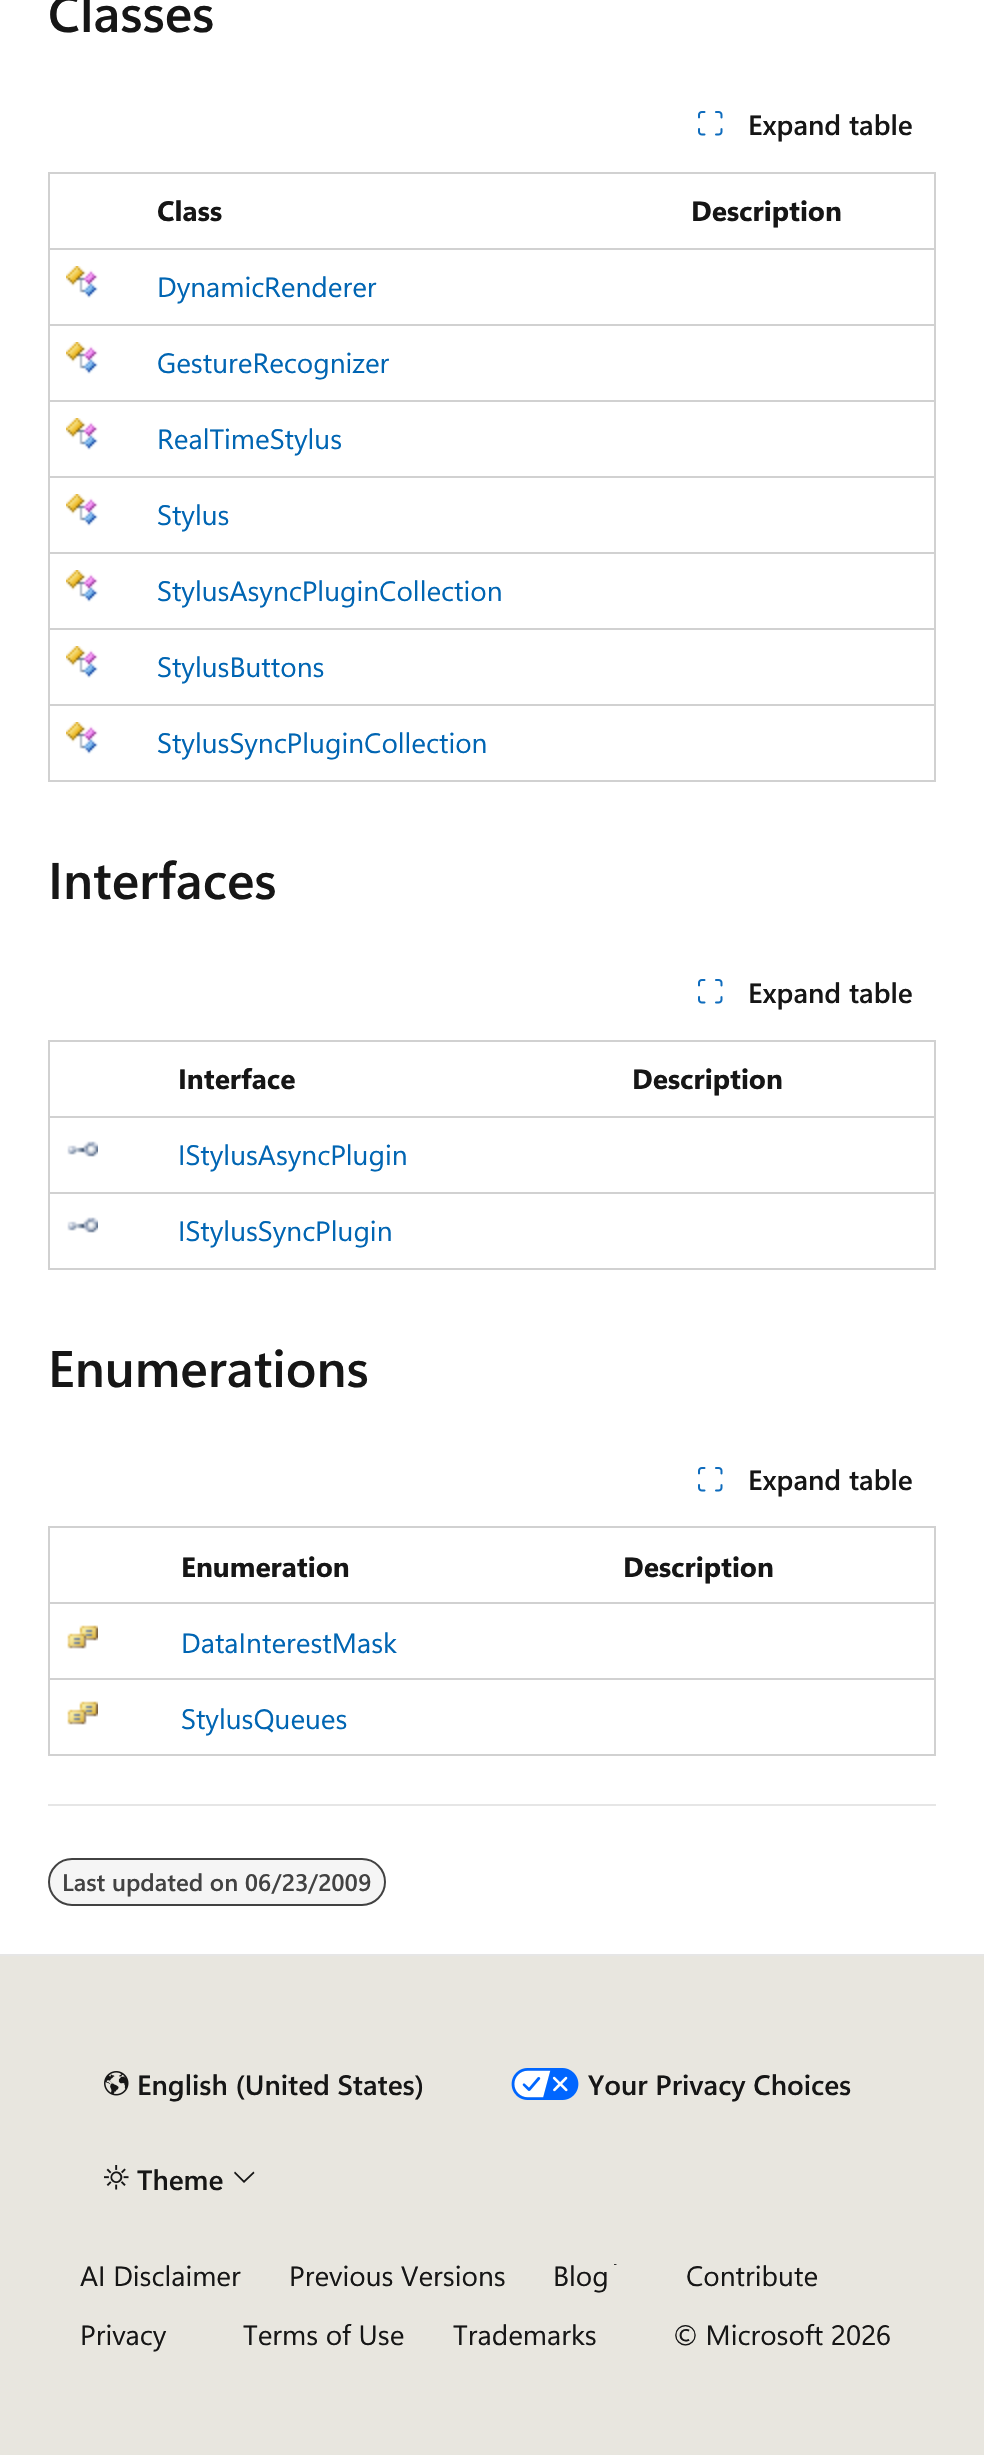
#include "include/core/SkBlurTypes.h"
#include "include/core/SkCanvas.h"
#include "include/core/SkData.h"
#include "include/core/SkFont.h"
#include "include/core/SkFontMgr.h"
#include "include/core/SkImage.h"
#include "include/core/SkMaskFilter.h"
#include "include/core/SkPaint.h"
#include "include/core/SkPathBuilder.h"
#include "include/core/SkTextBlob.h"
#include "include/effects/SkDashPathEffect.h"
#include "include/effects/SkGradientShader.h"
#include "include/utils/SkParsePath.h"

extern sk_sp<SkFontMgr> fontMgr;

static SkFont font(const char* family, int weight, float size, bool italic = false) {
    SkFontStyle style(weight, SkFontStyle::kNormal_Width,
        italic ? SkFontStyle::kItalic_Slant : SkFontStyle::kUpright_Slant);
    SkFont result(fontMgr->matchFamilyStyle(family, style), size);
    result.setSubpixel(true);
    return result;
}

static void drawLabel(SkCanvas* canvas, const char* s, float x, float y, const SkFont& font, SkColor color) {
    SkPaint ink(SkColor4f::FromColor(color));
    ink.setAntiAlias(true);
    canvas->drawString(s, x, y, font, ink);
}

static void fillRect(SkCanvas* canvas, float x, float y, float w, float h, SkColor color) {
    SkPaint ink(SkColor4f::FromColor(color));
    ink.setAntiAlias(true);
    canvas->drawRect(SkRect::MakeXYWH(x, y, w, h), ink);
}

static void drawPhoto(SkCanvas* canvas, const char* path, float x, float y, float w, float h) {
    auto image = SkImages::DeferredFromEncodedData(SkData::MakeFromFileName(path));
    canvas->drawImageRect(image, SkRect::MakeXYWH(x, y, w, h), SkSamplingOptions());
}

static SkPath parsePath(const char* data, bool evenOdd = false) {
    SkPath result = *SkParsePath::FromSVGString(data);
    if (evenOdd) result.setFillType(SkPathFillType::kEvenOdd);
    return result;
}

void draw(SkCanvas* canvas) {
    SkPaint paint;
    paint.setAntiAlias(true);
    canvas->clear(0xFFFFFFFF);
    SkFont font1 = font("Segoe UI", 600, 51.5f);
    drawLabel(canvas, "Classes", 48, 32, font1, 0xFF161616);
    drawPhoto(canvas, "assets/img1.png", 698, 111, 25, 25);
    SkFont font2 = font("Segoe UI", 600, 28);
    drawLabel(canvas, "Expand table", 748, 135, font2, 0xFF161616);
    fillRect(canvas, 48, 172, 888, 2, 0xFFD1D1D1);
    fillRect(canvas, 934, 172, 2, 610, 0xFFD1D1D1);
    fillRect(canvas, 48, 780, 888, 2, 0xFFD1D1D1);
    fillRect(canvas, 48, 172, 2, 610, 0xFFD1D1D1);
    SkFont font3 = font("Segoe UI", 700, 28);
    drawLabel(canvas, "Class", 157, 221, font3, 0xFF161616);
    drawLabel(canvas, "Description", 691, 221, font3, 0xFF161616);
    fillRect(canvas, 48, 248, 888, 2, 0xFFD1D1D1);
    drawPhoto(canvas, "assets/img2.png", 66, 266, 32, 32);
    SkFont font4 = font("Segoe UI", 400, 28);
    drawLabel(canvas, "DynamicRenderer", 157, 297, font4, 0xFF0065B3);
    fillRect(canvas, 48, 324, 888, 2, 0xFFD1D1D1);
    drawPhoto(canvas, "assets/img2.png", 66, 342, 32, 32);
    drawLabel(canvas, "GestureRecognizer", 157, 373, font4, 0xFF0065B3);
    fillRect(canvas, 48, 400, 888, 2, 0xFFD1D1D1);
    drawPhoto(canvas, "assets/img2.png", 66, 418, 32, 32);
    drawLabel(canvas, "RealTimeStylus", 157, 449, font4, 0xFF0065B3);
    fillRect(canvas, 48, 476, 888, 2, 0xFFD1D1D1);
    drawPhoto(canvas, "assets/img2.png", 66, 494, 32, 32);
    drawLabel(canvas, "Stylus", 157, 525, font4, 0xFF0065B3);
    fillRect(canvas, 48, 552, 888, 2, 0xFFD1D1D1);
    drawPhoto(canvas, "assets/img2.png", 66, 570, 32, 32);
    drawLabel(canvas, "StylusAsyncPluginCollection", 157, 601, font4, 0xFF0065B3);
    fillRect(canvas, 48, 628, 888, 2, 0xFFD1D1D1);
    drawPhoto(canvas, "assets/img2.png", 66, 646, 32, 32);
    drawLabel(canvas, "StylusButtons", 157, 677, font4, 0xFF0065B3);
    fillRect(canvas, 48, 704, 888, 2, 0xFFD1D1D1);
    drawPhoto(canvas, "assets/img2.png", 66, 722, 32, 32);
    drawLabel(canvas, "StylusSyncPluginCollection", 157, 753, font4, 0xFF0065B3);
    drawLabel(canvas, "Interfaces", 48, 899, font1, 0xFF161616);
    drawPhoto(canvas, "assets/img1.png", 698, 979, 25, 25);
    drawLabel(canvas, "Expand table", 748, 1003, font2, 0xFF161616);
    fillRect(canvas, 48, 1040, 888, 2, 0xFFD1D1D1);
    fillRect(canvas, 934, 1040, 2, 230, 0xFFD1D1D1);
    fillRect(canvas, 48, 1268, 888, 2, 0xFFD1D1D1);
    fillRect(canvas, 48, 1040, 2, 230, 0xFFD1D1D1);
    drawLabel(canvas, "Interface", 178, 1089, font3, 0xFF161616);
    drawLabel(canvas, "Description", 632, 1089, font3, 0xFF161616);
    fillRect(canvas, 48, 1116, 888, 2, 0xFFD1D1D1);
    drawPhoto(canvas, "assets/img3.png", 67, 1141, 31, 16);
    drawLabel(canvas, "IStylusAsyncPlugin", 178, 1165, font4, 0xFF0065B3);
    fillRect(canvas, 48, 1192, 888, 2, 0xFFD1D1D1);
    drawPhoto(canvas, "assets/img3.png", 67, 1217, 31, 16);
    drawLabel(canvas, "IStylusSyncPlugin", 178, 1241, font4, 0xFF0065B3);
    drawLabel(canvas, "Enumerations", 48, 1387, font1, 0xFF161616);
    drawPhoto(canvas, "assets/img1.png", 698, 1467, 25, 25);
    drawLabel(canvas, "Expand table", 748, 1490, font2, 0xFF161616);
    fillRect(canvas, 48, 1526, 888, 2, 0xFFD1D1D1);
    fillRect(canvas, 934, 1526, 2, 230, 0xFFD1D1D1);
    fillRect(canvas, 48, 1754, 888, 2, 0xFFD1D1D1);
    fillRect(canvas, 48, 1526, 2, 230, 0xFFD1D1D1);
    drawLabel(canvas, "Enumeration", 181, 1577, font3, 0xFF161616);
    drawLabel(canvas, "Description", 623, 1577, font3, 0xFF161616);
    fillRect(canvas, 48, 1602, 888, 2, 0xFFD1D1D1);
    drawPhoto(canvas, "assets/img4.png", 67, 1625, 31, 24);
    drawLabel(canvas, "DataInterestMask", 181, 1653, font4, 0xFF0065B3);
    fillRect(canvas, 48, 1678, 888, 2, 0xFFD1D1D1);
    drawPhoto(canvas, "assets/img4.png", 67, 1701, 31, 24);
    drawLabel(canvas, "StylusQueues", 181, 1729, font4, 0xFF0065B3);
    fillRect(canvas, 48, 1804, 888, 2, 0xFFE6E6E6);
    paint.setColor(0xFFF5F5F5);
    canvas->drawRoundRect(SkRect::MakeXYWH(49, 1859, 336, 46), 23, 23, paint);
    paint.setStroke(true);
    paint.setStrokeWidth(2);
    paint.setColor(0xFF424242);
    canvas->drawRoundRect(SkRect::MakeXYWH(49, 1859, 336, 46), 23, 23, paint);
    SkFont font5 = font("Segoe UI", 600, 24);
    drawLabel(canvas, "Last updated on 06/23/2009", 62, 1891, font5, 0xFF424242);
    fillRect(canvas, 0, 1956, 984, 499, 0xFFE8E6DF);
    fillRect(canvas, 0, 1954, 984, 2, 0xFFE6E6E6);
    drawPhoto(canvas, "assets/img5.png", 104, 2071, 25, 25);
    drawLabel(canvas, "English (United States)", 137, 2095, font2, 0xFF161616);
    drawPhoto(canvas, "assets/img6.png", 511, 2068, 68, 32);
    drawLabel(canvas, "Your Privacy Choices", 588, 2095, font2, 0xFF161616);
    drawPhoto(canvas, "assets/img7.png", 104, 2165, 25, 25);
    drawLabel(canvas, "Theme", 137, 2190, font2, 0xFF161616);
    paint.setStroke(false);
    paint.setColor(0xFF161616);
    canvas->drawPath(parsePath("M244 2183L234 2173L235 2171.5L244 2180.5L253.5 2171.5L254.5 2173Z"), paint);
    drawLabel(canvas, "AI Disclaimer", 80, 2286, font4, 0xFF161616);
    drawLabel(canvas, "Previous Versions", 289, 2286, font4, 0xFF161616);
    drawPhoto(canvas, "assets/img8.png", 614, 2264, 3, 1);
    drawLabel(canvas, "Blog", 553, 2286, font4, 0xFF161616);
    drawLabel(canvas, "Contribute", 686, 2286, font4, 0xFF161616);
    drawLabel(canvas, "Privacy", 80, 2345, font4, 0xFF161616);
    drawLabel(canvas, "Terms of Use", 243, 2345, font4, 0xFF161616);
    drawLabel(canvas, "Trademarks", 453, 2345, font4, 0xFF161616);
    drawLabel(canvas, "© Microsoft 2026", 673, 2345, font4, 0xFF161616);
}
